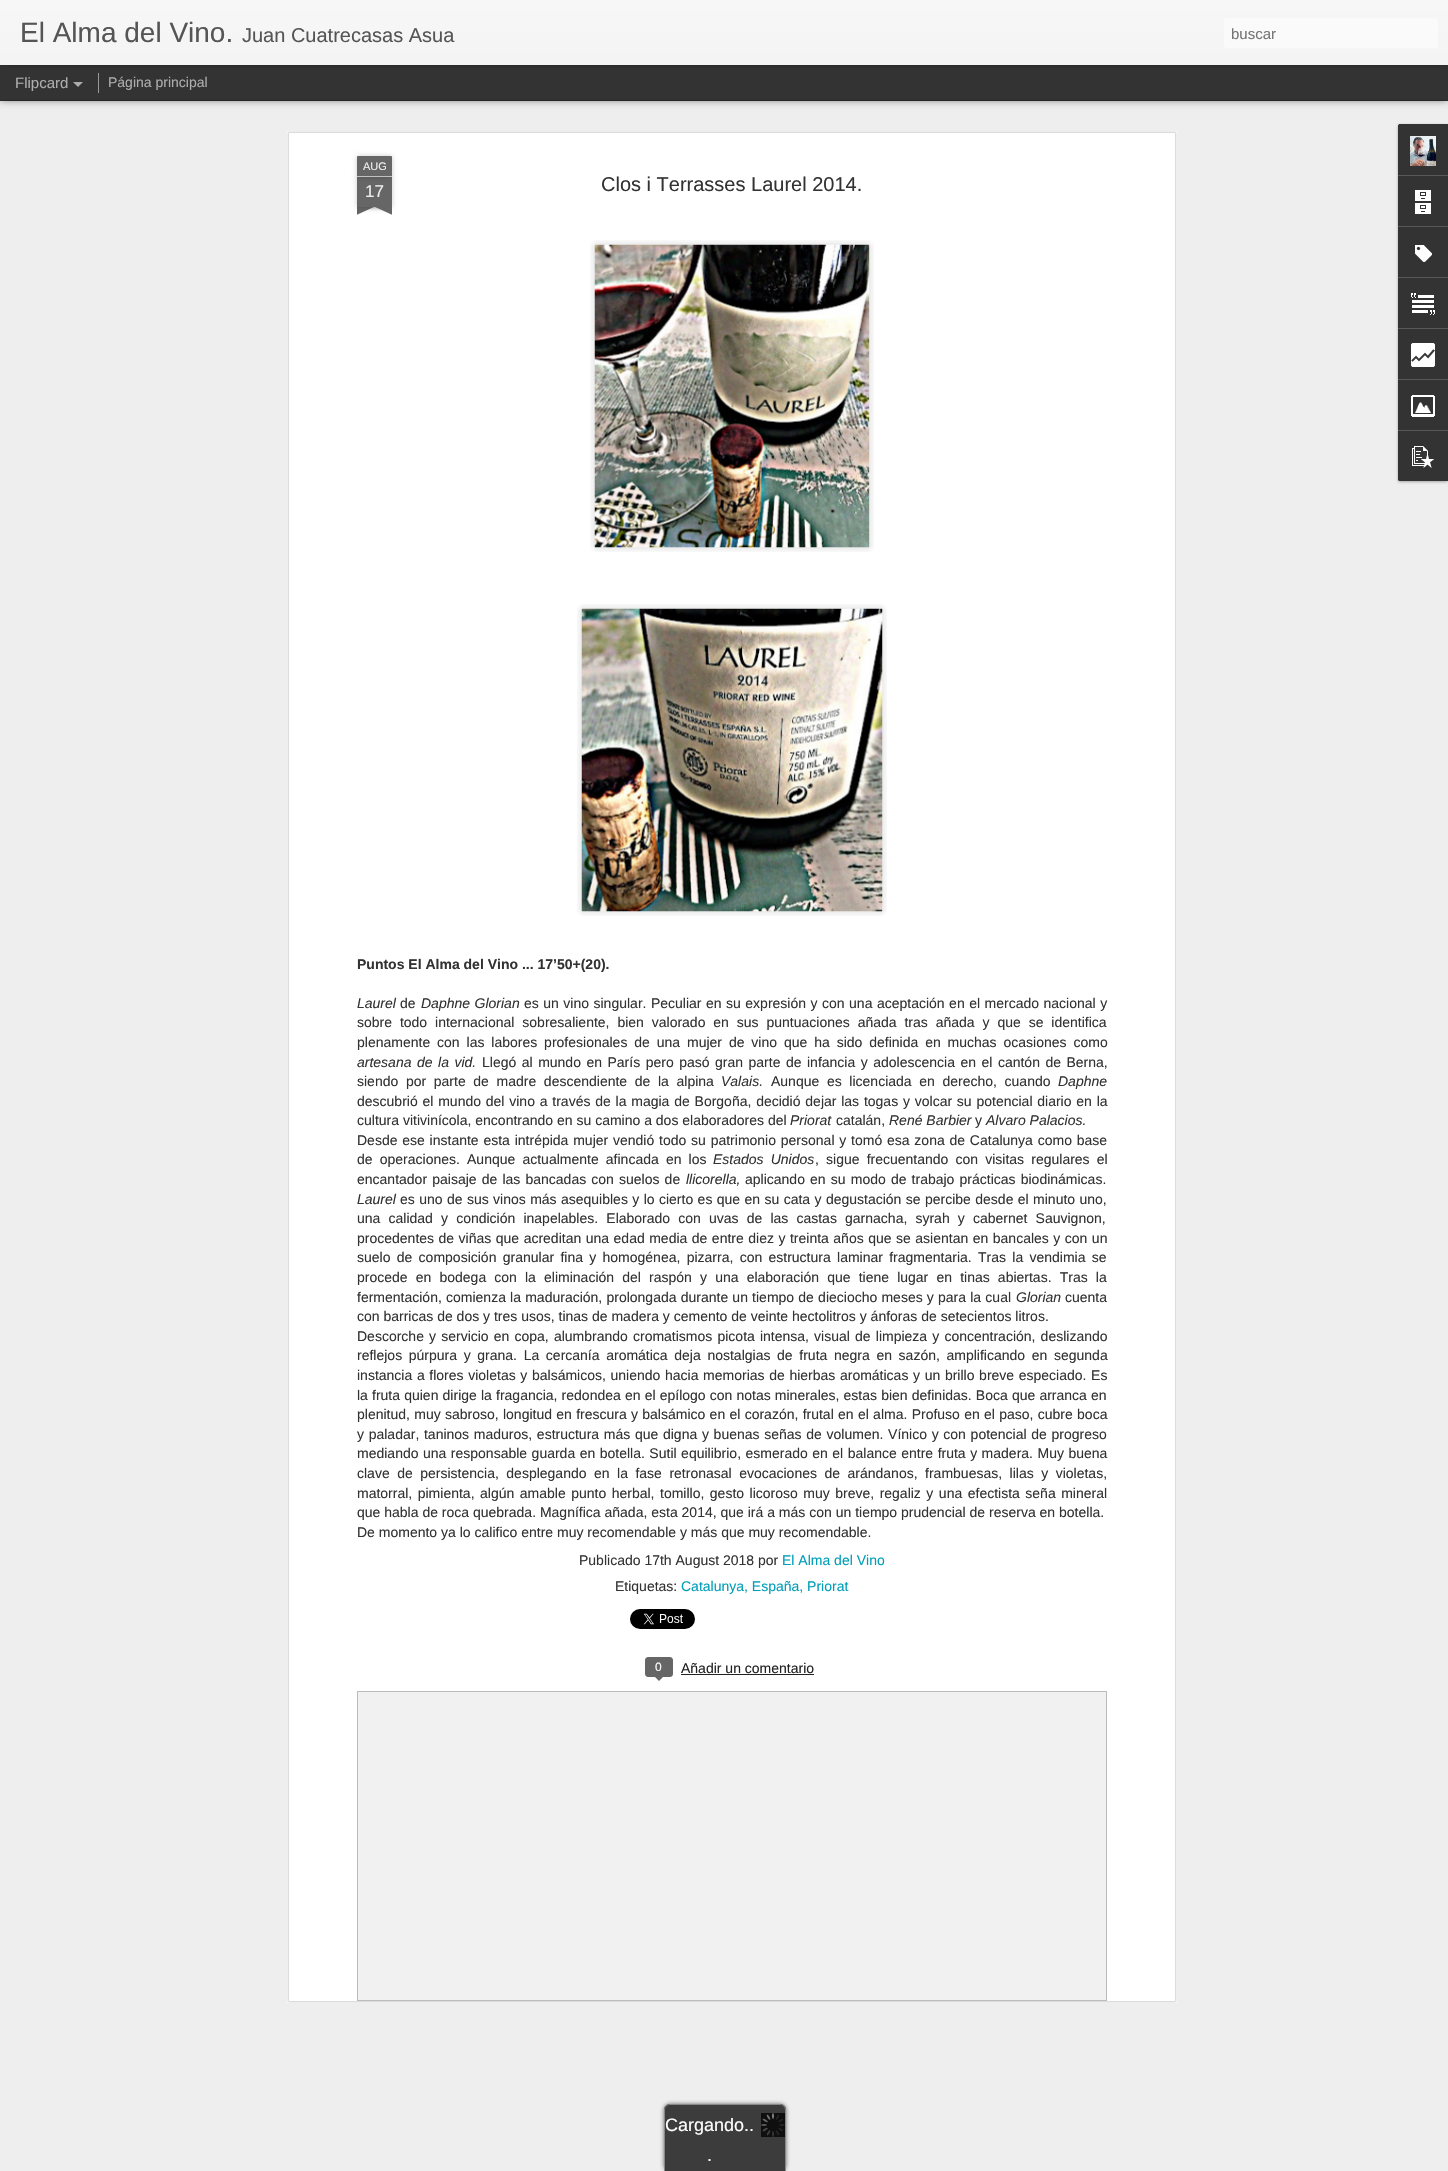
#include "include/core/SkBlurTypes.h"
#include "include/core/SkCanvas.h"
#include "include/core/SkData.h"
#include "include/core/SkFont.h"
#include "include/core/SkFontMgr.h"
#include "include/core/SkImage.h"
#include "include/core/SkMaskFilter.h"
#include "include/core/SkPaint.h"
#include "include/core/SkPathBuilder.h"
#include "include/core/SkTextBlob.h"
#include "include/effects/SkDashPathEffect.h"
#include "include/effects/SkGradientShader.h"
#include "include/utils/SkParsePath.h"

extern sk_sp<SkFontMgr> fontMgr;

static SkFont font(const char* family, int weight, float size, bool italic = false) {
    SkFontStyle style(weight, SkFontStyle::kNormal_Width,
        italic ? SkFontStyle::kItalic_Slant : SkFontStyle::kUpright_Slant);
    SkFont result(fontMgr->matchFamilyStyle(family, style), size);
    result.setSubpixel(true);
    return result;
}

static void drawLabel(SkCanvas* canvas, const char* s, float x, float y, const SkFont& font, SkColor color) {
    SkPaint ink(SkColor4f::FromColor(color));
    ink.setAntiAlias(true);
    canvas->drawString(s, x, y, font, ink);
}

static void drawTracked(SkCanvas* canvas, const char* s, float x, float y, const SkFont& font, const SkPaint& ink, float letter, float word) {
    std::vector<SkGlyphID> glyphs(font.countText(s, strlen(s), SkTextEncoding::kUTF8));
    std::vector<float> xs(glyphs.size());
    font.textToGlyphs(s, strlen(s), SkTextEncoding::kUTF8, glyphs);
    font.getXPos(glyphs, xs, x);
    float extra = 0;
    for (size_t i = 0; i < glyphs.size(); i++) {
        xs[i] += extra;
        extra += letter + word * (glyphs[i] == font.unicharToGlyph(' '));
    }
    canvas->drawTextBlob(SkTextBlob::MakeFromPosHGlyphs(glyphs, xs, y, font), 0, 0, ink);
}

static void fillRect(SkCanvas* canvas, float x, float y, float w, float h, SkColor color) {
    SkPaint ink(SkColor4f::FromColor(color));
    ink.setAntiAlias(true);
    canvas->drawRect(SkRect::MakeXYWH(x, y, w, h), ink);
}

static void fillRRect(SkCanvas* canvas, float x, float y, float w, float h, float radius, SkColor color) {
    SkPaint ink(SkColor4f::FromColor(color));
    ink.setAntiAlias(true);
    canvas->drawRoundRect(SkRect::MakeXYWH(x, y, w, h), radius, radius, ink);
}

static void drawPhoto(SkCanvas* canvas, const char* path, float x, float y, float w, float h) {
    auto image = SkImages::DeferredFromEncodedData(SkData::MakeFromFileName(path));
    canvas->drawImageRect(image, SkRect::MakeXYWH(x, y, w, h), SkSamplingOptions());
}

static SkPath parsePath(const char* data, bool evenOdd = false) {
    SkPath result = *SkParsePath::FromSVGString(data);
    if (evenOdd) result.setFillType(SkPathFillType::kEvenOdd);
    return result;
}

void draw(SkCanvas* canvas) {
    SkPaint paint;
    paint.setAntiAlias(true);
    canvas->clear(0xFF333333);
    fillRect(canvas, 0, 101, 1448, 2070, 0xFFEEEEEE);
    paint.setColor(0x80000000);
    paint.setMaskFilter(SkMaskFilter::MakeBlur(kNormal_SkBlurStyle, 4));
    canvas->drawRect(SkRect::MakeXYWH(0, 65, 1448, 35), paint);
    paint.setMaskFilter(nullptr);
    fillRect(canvas, 0, 65, 1448, 35, 0xFF333333);
    fillRect(canvas, 98, 73, 1, 20, 0xFF999999);
    paint.setColor(0x4D000000);
    paint.setMaskFilter(SkMaskFilter::MakeBlur(kNormal_SkBlurStyle, 2.5f));
    canvas->drawRect(SkRect::MakeXYWH(0, 0, 1448, 65), paint);
    paint.setMaskFilter(nullptr);
    {
        const SkColor colors[] = {0xFFF7F7F7, 0xFFF4F4F4};
        const float stops[] = {0, 1};
        const SkPoint ends[] = {{0, 0}, {0, 65}};
        paint.setShader(SkGradientShader::MakeLinear(ends, colors, stops, 2, SkTileMode::kClamp));
        paint.setAlpha(255);
    }
    canvas->drawRect(SkRect::MakeXYWH(0, 0, 1448, 65), paint);
    SkFont font1 = font("Liberation Sans", 400, 28);
    drawLabel(canvas, "El Alma del Vino.", 20, 42, font1, 0xFF555555);
    SkFont font2 = font("Liberation Sans", 400, 20);
    drawLabel(canvas, "Juan Cuatrecasas Asua", 242, 42, font2, 0xFF555555);
    fillRRect(canvas, 1224, 18, 214, 30, 3, 0xFFFAFAFA);
    SkFont font3 = font("Liberation Sans", 400, 15);
    drawLabel(canvas, "buscar", 1231, 39, font3, 0xFF757575);
    drawLabel(canvas, "Flipcard", 15, 88, font3, 0xFFADADAD);
    paint.setShader(nullptr);
    paint.setColor(0xFFADADAD);
    canvas->drawPath(parsePath("M73 82H83L78 87Z"), paint);
    SkFont font4 = font("Liberation Sans", 400, 14);
    drawLabel(canvas, "Página principal", 108, 87, font4, 0xFFADADAD);
    fillRect(canvas, 287, 131, 890, 1872, 0xFFFFFFFF);
    drawPhoto(canvas, "assets/img1.png", 287, 131, 890, 1872);
    paint.setColor(0x33000000);
    paint.setMaskFilter(SkMaskFilter::MakeBlur(kNormal_SkBlurStyle, 2.5f));
    canvas->drawRect(SkRect::MakeXYWH(357, 177, 35, 30), paint);
    paint.setMaskFilter(nullptr);
    fillRect(canvas, 357, 177, 35, 30, 0xFF666666);
    paint.setMaskFilter(SkMaskFilter::MakeBlur(kNormal_SkBlurStyle, 2.5f));
    canvas->drawRoundRect(SkRect::MakeXYWH(357, 156, 35, 21), 1, 1, paint);
    paint.setMaskFilter(nullptr);
    paint.setColor(0xFF666666);
    canvas->drawPath(parsePath("M358 156H391C391.5 156 392 156.5 392 157V177H357V157C357 156.5 357.5 156 358 156Z"), paint);
    fillRect(canvas, 357, 176, 35, 1, 0xFFC2C2C2);
    SkFont font5 = font("Liberation Sans", 400, 11);
    drawLabel(canvas, "AUG", 363, 170, font5, 0xFFEEEEEE);
    SkFont font6 = font("Liberation Sans", 400, 17);
    drawLabel(canvas, "17", 365, 197, font6, 0xFFEEEEEE);
    canvas->save();
    canvas->clipRect(SkRect::MakeXYWH(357, 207, 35, 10));
    paint.setColor(0x33000000);
    paint.setMaskFilter(SkMaskFilter::MakeBlur(kNormal_SkBlurStyle, 2.5f));
    canvas->drawRect(SkRect::MakeXYWH(348, 197, 50, 10), paint);
    paint.setMaskFilter(nullptr);
    canvas->restore();
    canvas->save();
    canvas->clipRect(SkRect::MakeXYWH(357, 207, 35, 10));
    paint.setColor(0xFF666666);
    canvas->drawPath(parsePath("M348 208L394 187L398 196L352 217Z"), paint);
    canvas->restore();
    canvas->save();
    canvas->clipRect(SkRect::MakeXYWH(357, 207, 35, 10));
    paint.setColor(0x33000000);
    paint.setMaskFilter(SkMaskFilter::MakeBlur(kNormal_SkBlurStyle, 2.5f));
    canvas->drawRect(SkRect::MakeXYWH(351, 197, 50, 10), paint);
    paint.setMaskFilter(nullptr);
    canvas->restore();
    canvas->save();
    canvas->clipRect(SkRect::MakeXYWH(357, 207, 35, 10));
    paint.setColor(0xFF666666);
    canvas->drawPath(parsePath("M355 187L401 208L397 217L351 196Z"), paint);
    canvas->restore();
    drawLabel(canvas, "Clos i Terrasses Laurel 2014.", 601, 191, font2, 0xFF333333);
    drawPhoto(canvas, "assets/img2.png", 590, 240, 284, 312);
    drawPhoto(canvas, "assets/img3.png", 594, 244, 276, 304);
    drawPhoto(canvas, "assets/img4.png", 577, 604, 310, 312);
    drawPhoto(canvas, "assets/img5.png", 581, 608, 302, 304);
    SkFont font7 = font("Liberation Sans", 700, 14);
    drawLabel(canvas, "Puntos El Alma del Vino ... 17’50+(20).", 357, 969, font7, 0xFF333333);
    SkFont font8 = font("Liberation Sans", 400, 14, true);
    drawLabel(canvas, "Laurel", 357, 1008, font8, 0xFF333333);
    drawLabel(canvas, "de", 400, 1008, font4, 0xFF333333);
    paint.setColor(0xFF333333);
    drawTracked(canvas, "Daphne Glorian", 421, 1008, font8, paint, 0, 0.6f);
    drawTracked(canvas, "es un vino singular. Peculiar en su expresión y con una aceptación en el mercado nacional y", 524, 1008, font4, paint, 0, 0.6f);
    drawTracked(canvas, "sobre todo internacional sobresaliente, bien valorado en sus puntuaciones añada tras añada y que se identifica", 357, 1027, font4, paint, 0, 4);
    drawTracked(canvas, "plenamente con las labores profesionales de una mujer de vino que ha sido definida en muchas ocasiones como", 357, 1047, font4, paint, 0, 3);
    drawTracked(canvas, "artesana de la vid.", 357, 1067, font8, paint, 0, 1.6f);
    drawTracked(canvas, "Llegó al mundo en París pero pasó gran parte de infancia y adolescencia en el cantón de Berna,", 482, 1067, font4, paint, 0, 1.6f);
    drawTracked(canvas, "siendo por parte de madre descendiente de la alpina", 357, 1086, font4, paint, 0, 3.75f);
    drawLabel(canvas, "Valais.", 721, 1086, font8, 0xFF333333);
    drawTracked(canvas, "Aunque es licenciada en derecho, cuando", 771, 1086, font4, paint, 0, 3.75f);
    drawLabel(canvas, "Daphne", 1058, 1086, font8, 0xFF333333);
    drawTracked(canvas, "descubrió el mundo del vino a través de la magia de Borgoña, decidió dejar las togas y volcar su potencial diario en la", 357, 1106, font4, paint, 0, 0.9f);
    drawLabel(canvas, "cultura vitivinícola, encontrando en su camino a dos elaboradores del", 357, 1125, font4, 0xFF333333);
    drawLabel(canvas, "Priorat", 790, 1125, font8, 0xFF333333);
    drawLabel(canvas, "catalán,", 836, 1125, font4, 0xFF333333);
    drawLabel(canvas, "René Barbier", 889, 1125, font8, 0xFF333333);
    drawLabel(canvas, "y", 975, 1125, font4, 0xFF333333);
    drawLabel(canvas, "Alvaro Palacios.", 986, 1125, font8, 0xFF333333);
    drawTracked(canvas, "Desde ese instante esta intrépida mujer vendió todo su patrimonio personal y tomó esa zona de Catalunya como base", 357, 1145, font4, paint, 0, 0.9f);
    drawTracked(canvas, "de operaciones. Aunque actualmente afincada en los", 357, 1164, font4, paint, 0, 3.25f);
    drawTracked(canvas, "Estados Unidos", 713, 1164, font8, paint, 0, 3.25f);
    drawTracked(canvas, ", sigue frecuentando con visitas regulares el", 815, 1164, font4, paint, 0, 3.25f);
    drawTracked(canvas, "encantador paisaje de las bancadas con suelos de", 357, 1184, font4, paint, 0, 1.25f);
    drawLabel(canvas, "llicorella,", 686, 1184, font8, 0xFF333333);
    drawTracked(canvas, "aplicando en su modo de trabajo prácticas biodinámicas.", 745, 1184, font4, paint, 0, 1.25f);
    drawLabel(canvas, "Laurel", 357, 1204, font8, 0xFF333333);
    drawTracked(canvas, "es uno de sus vinos más asequibles y lo cierto es que en su cata y degustación se percibe desde el minuto uno,", 400, 1204, font4, paint, 0, 0.5f);
    drawTracked(canvas, "una calidad y condición inapelables. Elaborado con uvas de las castas garnacha, syrah y cabernet Sauvignon,", 357, 1223, font4, paint, 0, 4.25f);
    drawTracked(canvas, "procedentes de viñas que acreditan una edad media de entre diez y treinta años que se asientan en bancales y con un", 357, 1243, font4, paint, 0, 0.6f);
    drawTracked(canvas, "suelo de composición granular fina y homogénea, pizarra, con estructura laminar fragmentaria. Tras la vendimia se", 357, 1262, font4, paint, 0, 2.4f);
    drawTracked(canvas, "procede en bodega con la eliminación del raspón y una elaboración que tiene lugar en tinas abiertas. Tras la", 357, 1282, font4, paint, 0, 4.25f);
    drawTracked(canvas, "fermentación, comienza la maduración, prolongada durante un tiempo de dieciocho meses y para la cual", 357, 1302, font4, paint, 0, 0.3f);
    drawLabel(canvas, "Glorian", 1016, 1302, font8, 0xFF333333);
    drawLabel(canvas, "cuenta", 1065, 1302, font4, 0xFF333333);
    drawLabel(canvas, "con barricas de dos y tres usos, tinas de madera y cemento de veinte hectolitros y ánforas de setecientos litros.", 357, 1321, font4, 0xFF333333);
    drawTracked(canvas, "Descorche y servicio en copa, alumbrando cromatismos picota intensa, visual de limpieza y concentración, deslizando", 357, 1341, font4, paint, 0, 1.25f);
    drawTracked(canvas, "reflejos púrpura y grana. La cercanía aromática deja nostalgias de fruta negra en sazón, amplificando en segunda", 357, 1360, font4, paint, 0, 2.75f);
    drawTracked(canvas, "instancia a flores violetas y balsámicos, uniendo hacia memorias de hierbas aromáticas y un brillo breve especiado. Es", 357, 1380, font4, paint, 0, 0.75f);
    drawTracked(canvas, "la fruta quien dirige la fragancia, redondea en el epílogo con notas minerales, estas bien definidas. Boca que arranca en", 357, 1400, font4, paint, 0, 0.25f);
    drawTracked(canvas, "plenitud, muy sabroso, longitud en frescura y balsámico en el corazón, frutal en el alma. Profuso en el paso, cubre boca", 357, 1419, font4, paint, 0, 0.4f);
    drawTracked(canvas, "y paladar, taninos maduros, estructura más que digna y buenas señas de volumen. Vínico y con potencial de progreso", 357, 1439, font4, paint, 0, 0.8f);
    drawTracked(canvas, "mediando una responsable guarda en botella. Sutil equilibrio, esmerado en el balance entre fruta y madera. Muy buena", 357, 1458, font4, paint, 0, 0.6f);
    drawTracked(canvas, "clave de persistencia, desplegando en la fase retronasal evocaciones de arándanos, frambuesas, lilas y violetas,", 357, 1478, font4, paint, 0, 3.6f);
    drawTracked(canvas, "matorral, pimienta, algún amable punto herbal, tomillo, gesto licoroso muy breve, regaliz y una efectista seña mineral", 357, 1498, font4, paint, 0, 1.6f);
    drawLabel(canvas, "que habla de roca quebrada. Magnífica añada, esta 2014, que irá a más con un tiempo prudencial de reserva en botella.", 357, 1517, font4, 0xFF333333);
    drawLabel(canvas, "De momento ya lo califico entre muy recomendable y más que muy recomendable.", 357, 1537, font4, 0xFF333333);
    drawLabel(canvas, "Publicado 17th August 2018 por", 579, 1565, font4, 0xFF333333);
    drawLabel(canvas, "El Alma del Vino", 782, 1565, font4, 0xFF009EB8);
    drawLabel(canvas, "Etiquetas:", 615, 1591, font4, 0xFF333333);
    drawLabel(canvas, "Catalunya, España, Priorat", 681, 1591, font4, 0xFF009EB8);
    drawPhoto(canvas, "assets/img6.png", 630, 1609, 65, 20);
    paint.setColor(0xFF666666);
    canvas->drawRoundRect(SkRect::MakeXYWH(645.5f, 1657.5f, 27, 19), 2.5f, 2.5f, paint);
    paint.setStroke(true);
    paint.setStrokeWidth(1);
    canvas->drawRoundRect(SkRect::MakeXYWH(645.5f, 1657.5f, 27, 19), 2.5f, 2.5f, paint);
    SkFont font9 = font("Liberation Sans", 400, 12);
    drawLabel(canvas, "0", 655, 1671, font9, 0xFFFFFFFF);
    paint.setStroke(false);
    canvas->drawPath(parsePath("M654 1676H664L659 1681Z"), paint);
    drawLabel(canvas, "Añadir un comentario", 681, 1673, font4, 0xFF222222);
    fillRect(canvas, 681, 1674, 133, 1, 0xFF222222);
    paint.setColor(0xFFF1F1F1);
    canvas->drawRect(SkRect::MakeXYWH(357.5f, 1691.5f, 749, 309), paint);
    paint.setStroke(true);
    paint.setColor(0xFFBBBBBB);
    canvas->drawRect(SkRect::MakeXYWH(357.5f, 1691.5f, 749, 309), paint);
    paint.setStroke(false);
    paint.setColor(0x4D000000);
    paint.setMaskFilter(SkMaskFilter::MakeBlur(kNormal_SkBlurStyle, 1.5f));
    canvas->drawRoundRect(SkRect::MakeXYWH(1398, 125, 50, 357), 2, 2, paint);
    paint.setMaskFilter(nullptr);
    paint.setColor(0xFF333333);
    canvas->drawPath(parsePath("M1400 124H1448V481H1400C1399 481 1398 480 1398 479V126C1398 125 1399 124 1400 124Z"), paint);
    canvas->drawPath(parsePath("M1400 124H1448V175H1398V126C1398 125 1399 124 1400 124Z"), paint);
    drawPhoto(canvas, "assets/img7.png", 1410, 136, 26, 30);
    fillRect(canvas, 1398, 175, 50, 1, 0xFF585858);
    drawPhoto(canvas, "assets/img8.png", 1415, 190, 16, 24);
    fillRect(canvas, 1398, 226, 50, 1, 0xFF585858);
    drawPhoto(canvas, "assets/img9.png", 1415, 245, 17, 17);
    fillRect(canvas, 1398, 277, 50, 1, 0xFF585858);
    drawPhoto(canvas, "assets/img10.png", 1411, 293, 24, 22);
    fillRect(canvas, 1398, 328, 50, 1, 0xFF585858);
    drawPhoto(canvas, "assets/img11.png", 1411, 343, 24, 24);
    fillRect(canvas, 1398, 379, 50, 1, 0xFF585858);
    drawPhoto(canvas, "assets/img12.png", 1411, 395, 24, 22);
    canvas->drawPath(parsePath("M1398 430H1448V481H1400C1399 481 1398 480 1398 479Z"), paint);
    fillRect(canvas, 1398, 430, 50, 1, 0xFF585858);
    drawPhoto(canvas, "assets/img13.png", 1412, 446, 22, 22);
    paint.setColor(0xFF626262);
    paint.setMaskFilter(SkMaskFilter::MakeBlur(kNormal_SkBlurStyle, 2));
    canvas->drawRoundRect(SkRect::MakeXYWH(664, 2104, 122, 67), 6, 6, paint);
    paint.setMaskFilter(nullptr);
    paint.setColor(0xFF3C3C3C);
    canvas->drawPath(parsePath("M670 2104H780C783.5 2104 786 2106.5 786 2110V2171H664V2110C664 2106.5 666.5 2104 670 2104Z"), paint);
    paint.setColor(0xFF888888);
    canvas->drawPath(parsePath("M670 2104H780C783 2104 786 2107 786 2110V2171H664V2110C664 2107 667 2104 670 2104ZM670 2105H780C783 2105 785 2107 785 2110V2171H665V2110C665 2107 667 2105 670 2105Z", true), paint);
    drawPhoto(canvas, "assets/img14.png", 761, 2113, 24, 24);
    SkFont font10 = font("Liberation Sans", 400, 18);
    drawLabel(canvas, "Cargando..", 665, 2131, font10, 0xFFFFFFFF);
    drawLabel(canvas, ".", 707, 2161, font10, 0xFFFFFFFF);
}
